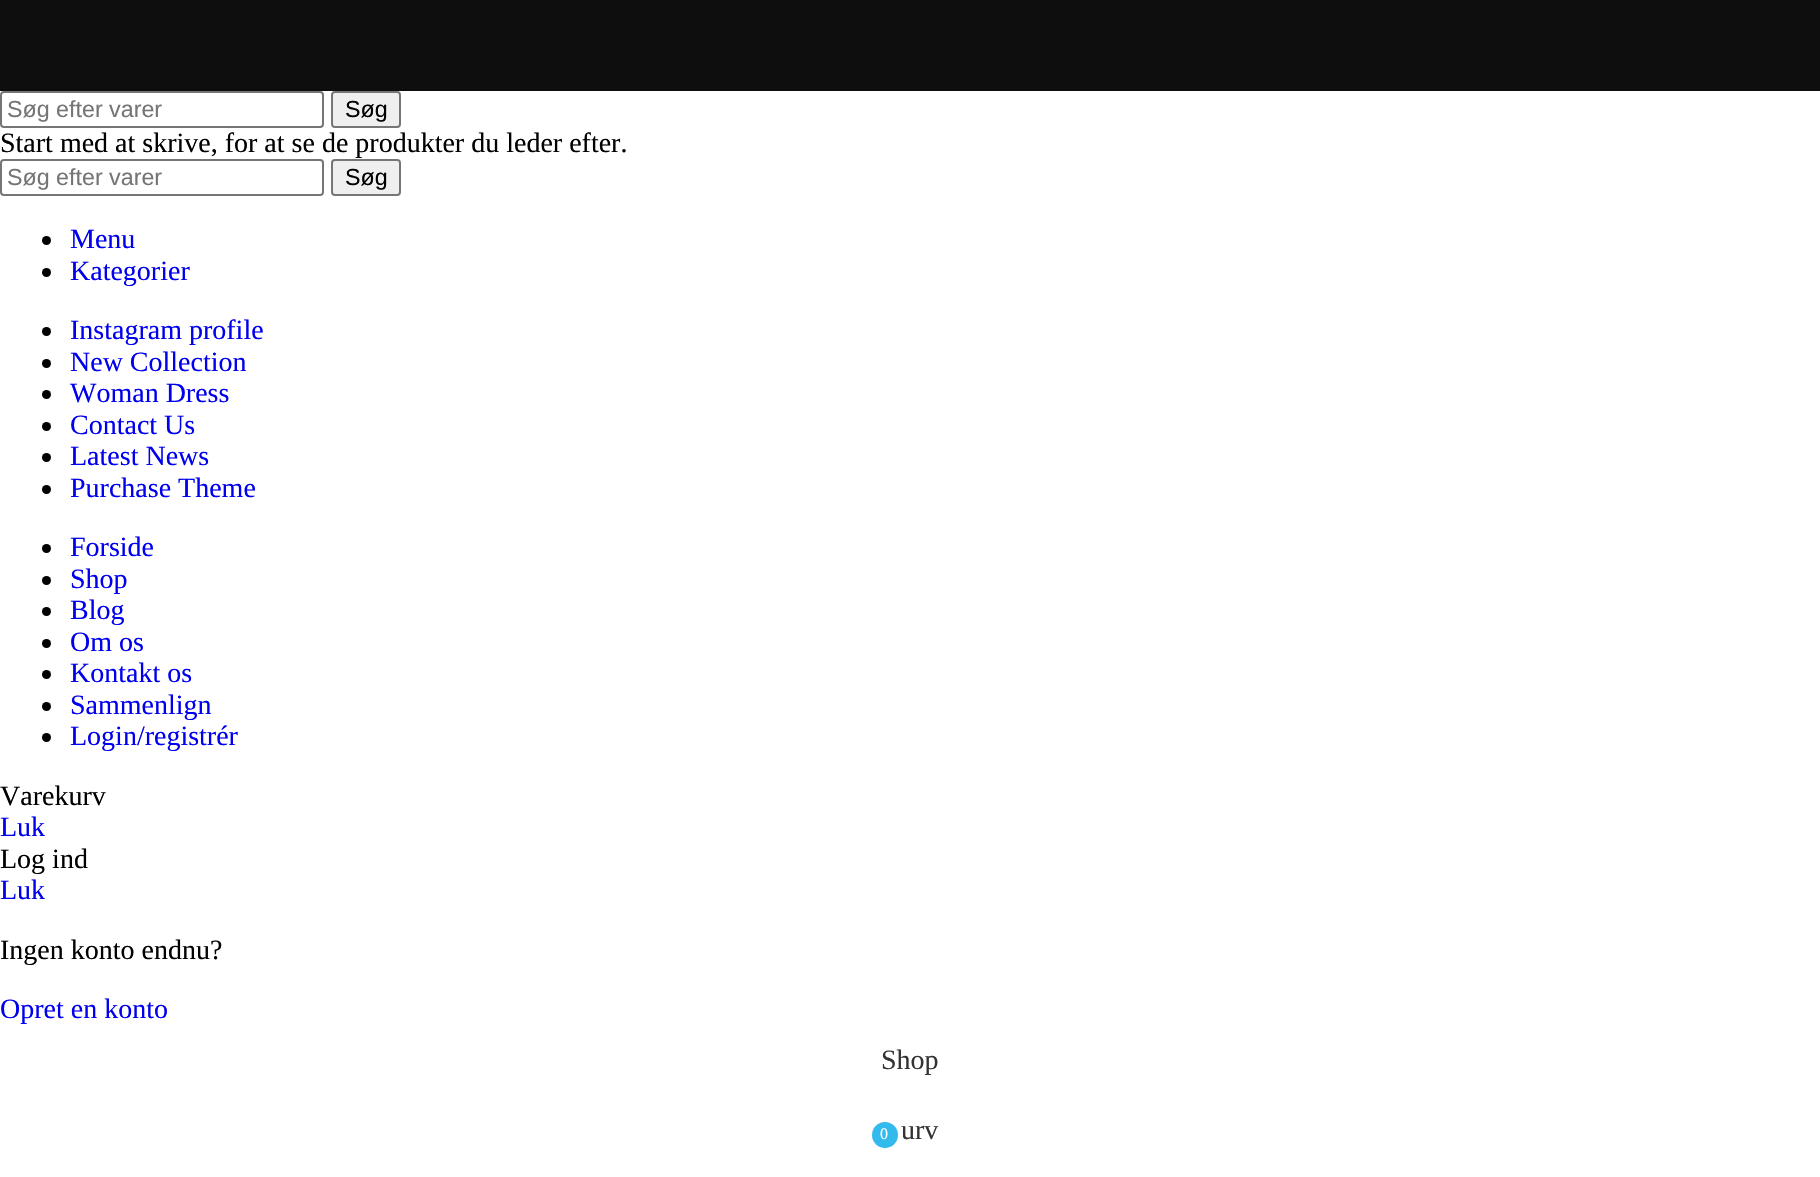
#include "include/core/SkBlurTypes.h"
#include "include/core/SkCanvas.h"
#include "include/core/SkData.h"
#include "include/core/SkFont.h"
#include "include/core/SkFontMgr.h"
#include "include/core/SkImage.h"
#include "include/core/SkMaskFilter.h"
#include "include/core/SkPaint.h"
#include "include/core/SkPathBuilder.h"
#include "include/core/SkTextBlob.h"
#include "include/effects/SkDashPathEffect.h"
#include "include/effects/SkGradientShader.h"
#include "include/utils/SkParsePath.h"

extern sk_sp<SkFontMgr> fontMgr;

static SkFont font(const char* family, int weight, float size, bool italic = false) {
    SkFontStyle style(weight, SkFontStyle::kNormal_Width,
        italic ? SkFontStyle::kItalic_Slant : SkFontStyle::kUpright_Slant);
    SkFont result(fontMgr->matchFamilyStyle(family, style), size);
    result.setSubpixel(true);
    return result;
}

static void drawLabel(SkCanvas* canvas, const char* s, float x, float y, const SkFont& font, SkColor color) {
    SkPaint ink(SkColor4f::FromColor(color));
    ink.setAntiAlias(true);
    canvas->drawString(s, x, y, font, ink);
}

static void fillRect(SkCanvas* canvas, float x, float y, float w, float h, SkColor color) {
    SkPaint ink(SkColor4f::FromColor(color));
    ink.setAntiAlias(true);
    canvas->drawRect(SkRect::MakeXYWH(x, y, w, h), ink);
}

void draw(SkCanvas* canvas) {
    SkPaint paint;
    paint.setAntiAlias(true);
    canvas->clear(0xFFFFFFFF);
    fillRect(canvas, 0, 0, 1820, 91, 0xFF0E0E0E);
    paint.setStroke(true);
    paint.setStrokeWidth(2);
    paint.setColor(0xFF767676);
    canvas->drawRoundRect(SkRect::MakeXYWH(1, 92, 322, 35), 3, 3, paint);
    SkFont font1 = font("Liberation Sans", 400, 23.25f);
    drawLabel(canvas, "Søg efter varer", 7, 117, font1, 0xFF757575);
    paint.setStroke(false);
    paint.setColor(0xFFEFEFEF);
    canvas->drawRoundRect(SkRect::MakeXYWH(332, 92, 68, 35), 3, 3, paint);
    paint.setStroke(true);
    paint.setColor(0xFF767676);
    canvas->drawRoundRect(SkRect::MakeXYWH(332, 92, 68, 35), 3, 3, paint);
    drawLabel(canvas, "Søg", 345, 117, font1, 0xFF000000);
    SkFont font2 = font("Liberation Serif", 400, 28);
    drawLabel(canvas, "Start med at skrive, for at se de produkter du leder efter.", 0, 152, font2, 0xFF000000);
    canvas->drawRoundRect(SkRect::MakeXYWH(1, 160, 322, 35), 3, 3, paint);
    drawLabel(canvas, "Søg efter varer", 7, 185, font1, 0xFF757575);
    paint.setStroke(false);
    paint.setColor(0xFFEFEFEF);
    canvas->drawRoundRect(SkRect::MakeXYWH(332, 160, 68, 35), 3, 3, paint);
    paint.setStroke(true);
    paint.setColor(0xFF767676);
    canvas->drawRoundRect(SkRect::MakeXYWH(332, 160, 68, 35), 3, 3, paint);
    drawLabel(canvas, "Søg", 345, 185, font1, 0xFF000000);
    paint.setStroke(false);
    paint.setColor(0xFF000000);
    canvas->drawCircle(46.5f, 240.5f, 4.5f, paint);
    drawLabel(canvas, "Menu", 70, 248, font2, 0xFF0000EE);
    canvas->drawCircle(46.5f, 272.5f, 4.5f, paint);
    drawLabel(canvas, "Kategorier", 70, 280, font2, 0xFF0000EE);
    canvas->drawCircle(46.5f, 331.5f, 4.5f, paint);
    drawLabel(canvas, "Instagram profile", 70, 339, font2, 0xFF0000EE);
    canvas->drawCircle(46.5f, 363.5f, 4.5f, paint);
    drawLabel(canvas, "New Collection", 70, 371, font2, 0xFF0000EE);
    canvas->drawCircle(46.5f, 394.5f, 4.5f, paint);
    drawLabel(canvas, "Woman Dress", 70, 402, font2, 0xFF0000EE);
    canvas->drawCircle(46.5f, 426.5f, 4.5f, paint);
    drawLabel(canvas, "Contact Us", 70, 434, font2, 0xFF0000EE);
    canvas->drawCircle(46.5f, 457.5f, 4.5f, paint);
    drawLabel(canvas, "Latest News", 70, 465, font2, 0xFF0000EE);
    canvas->drawCircle(46.5f, 489.5f, 4.5f, paint);
    drawLabel(canvas, "Purchase Theme", 70, 497, font2, 0xFF0000EE);
    canvas->drawCircle(46.5f, 548.5f, 4.5f, paint);
    drawLabel(canvas, "Forside", 70, 556, font2, 0xFF0000EE);
    canvas->drawCircle(46.5f, 580.5f, 4.5f, paint);
    drawLabel(canvas, "Shop", 70, 588, font2, 0xFF0000EE);
    canvas->drawCircle(46.5f, 611.5f, 4.5f, paint);
    drawLabel(canvas, "Blog", 70, 619, font2, 0xFF0000EE);
    canvas->drawCircle(46.5f, 643.5f, 4.5f, paint);
    drawLabel(canvas, "Om os", 70, 651, font2, 0xFF0000EE);
    canvas->drawCircle(46.5f, 674.5f, 4.5f, paint);
    drawLabel(canvas, "Kontakt os", 70, 682, font2, 0xFF0000EE);
    canvas->drawCircle(46.5f, 706.5f, 4.5f, paint);
    drawLabel(canvas, "Sammenlign", 70, 714, font2, 0xFF0000EE);
    canvas->drawCircle(46.5f, 737.5f, 4.5f, paint);
    drawLabel(canvas, "Login/registrér", 70, 745, font2, 0xFF0000EE);
    drawLabel(canvas, "Varekurv", 0, 805, font2, 0xFF000000);
    drawLabel(canvas, "Luk", 0, 836, font2, 0xFF0000EE);
    drawLabel(canvas, "Log ind", 0, 868, font2, 0xFF000000);
    drawLabel(canvas, "Luk", 0, 899, font2, 0xFF0000EE);
    drawLabel(canvas, "Ingen konto endnu?", 0, 959, font2, 0xFF000000);
    drawLabel(canvas, "Opret en konto", 0, 1018, font2, 0xFF0000EE);
    drawLabel(canvas, "Shop", 881, 1069, font2, 0xFF333333);
    paint.setColor(0xFF32BAEC);
    canvas->drawCircle(885, 1135, 13, paint);
    SkFont font3 = font("Liberation Serif", 400, 16);
    drawLabel(canvas, "0", 880, 1139, font3, 0xFFFFFFFF);
    drawLabel(canvas, "urv", 901, 1139, font2, 0xFF333333);
}
